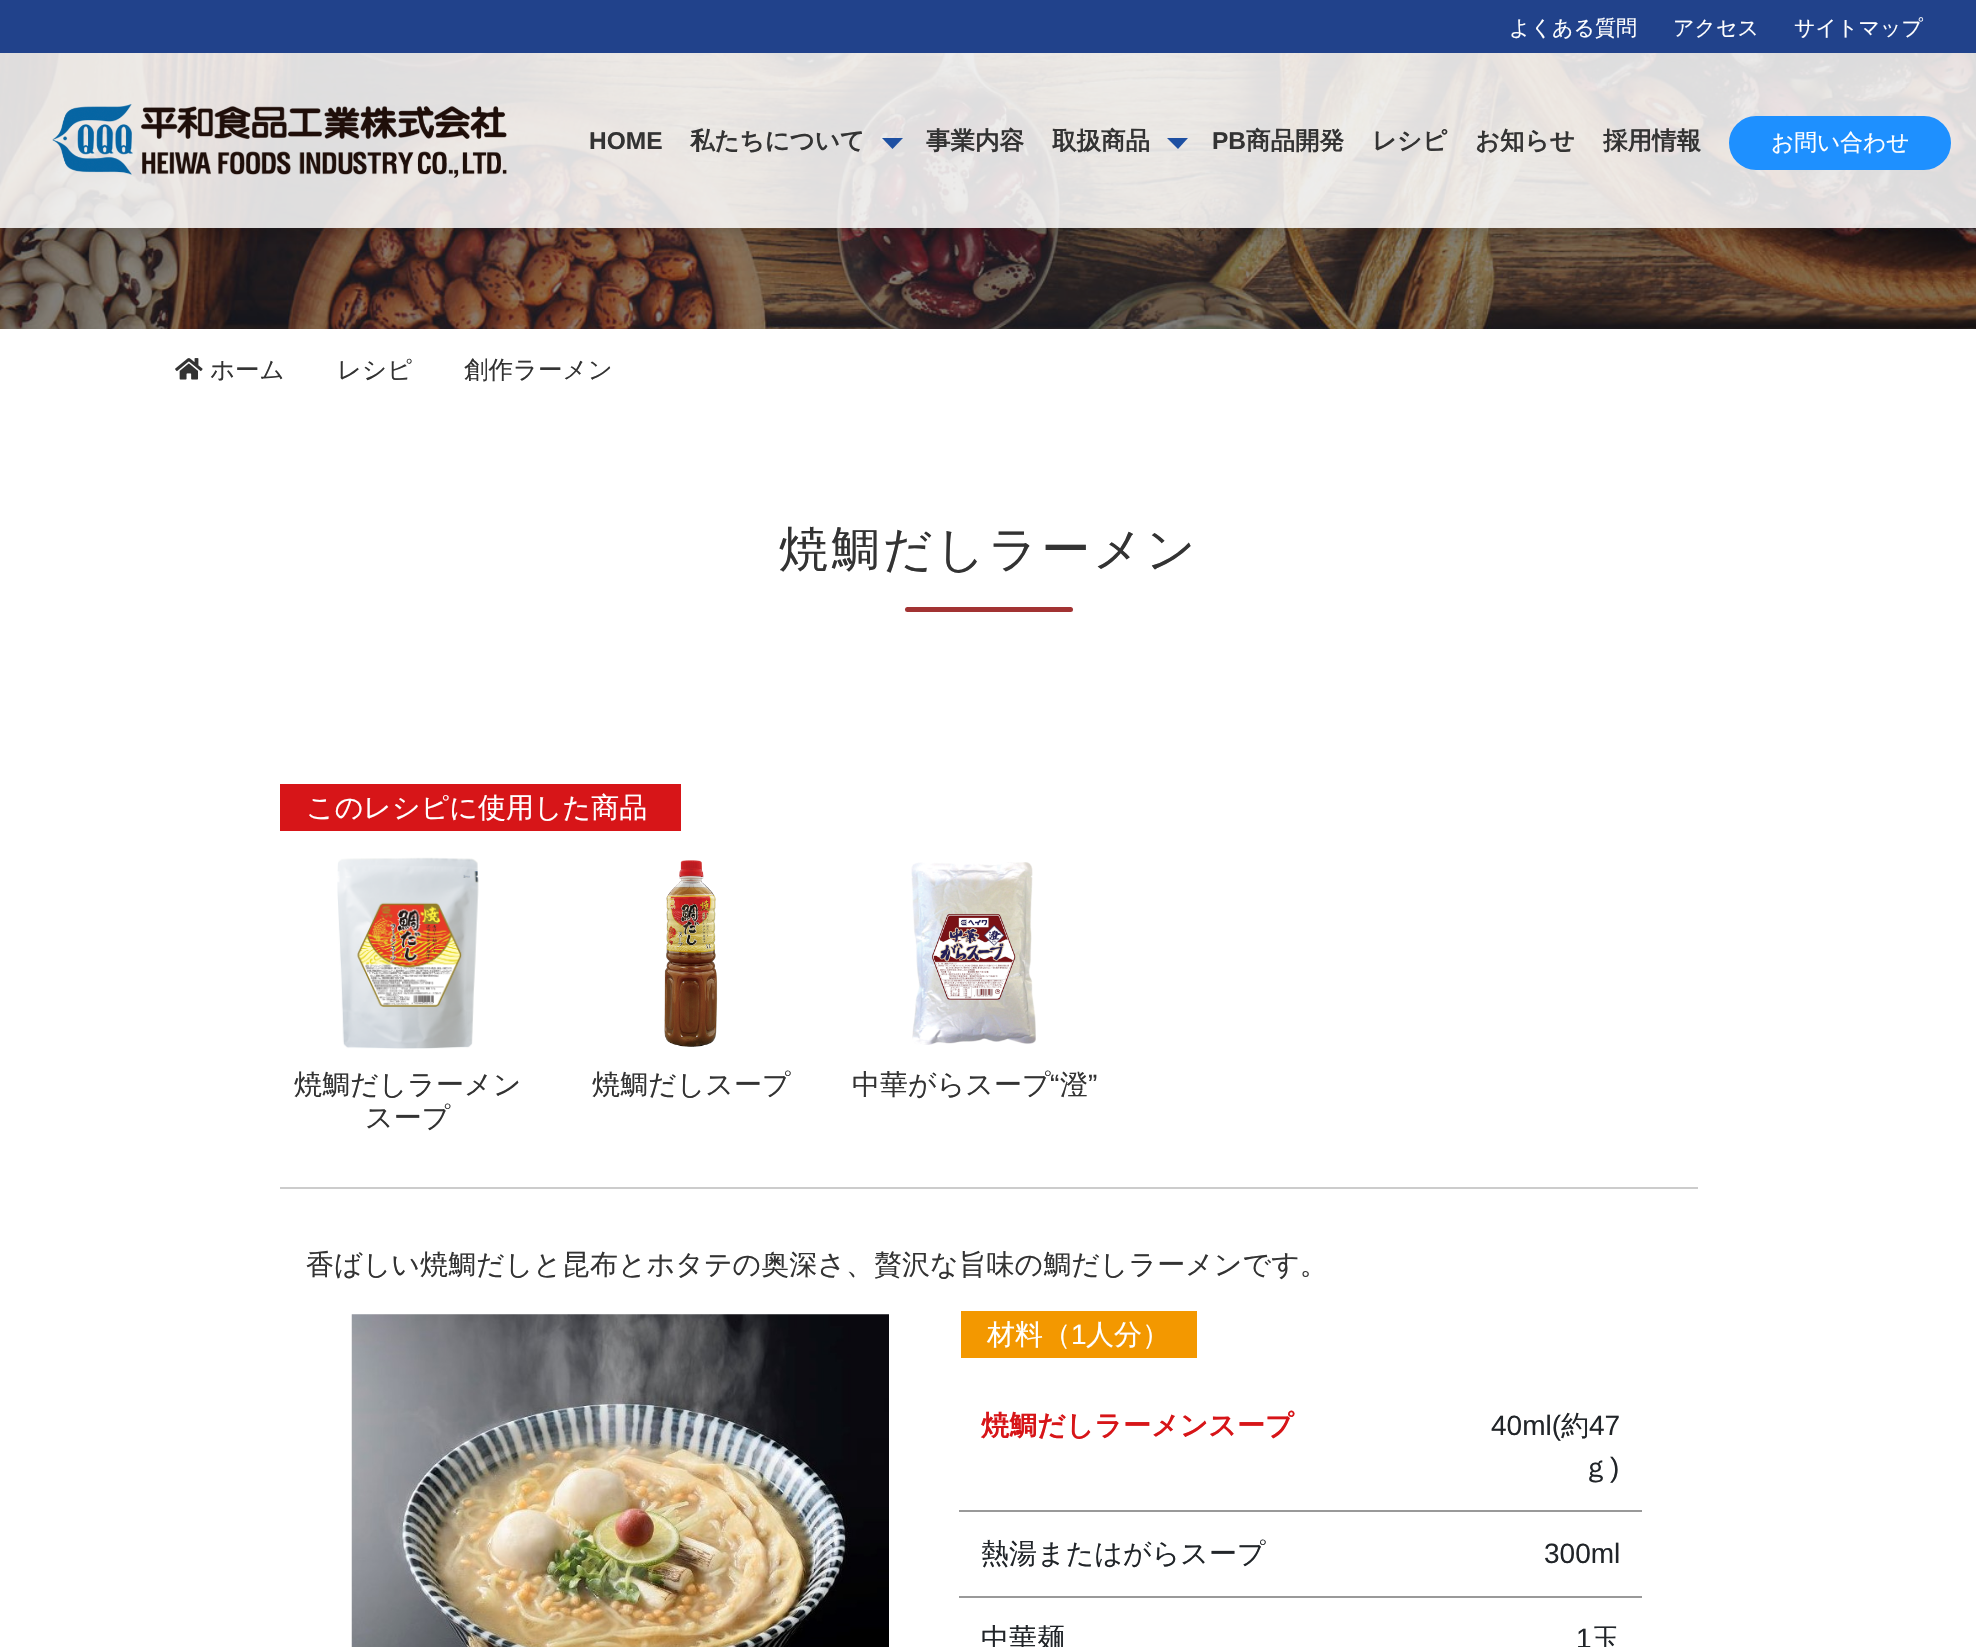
#include "include/core/SkBlurTypes.h"
#include "include/core/SkCanvas.h"
#include "include/core/SkData.h"
#include "include/core/SkFont.h"
#include "include/core/SkFontMgr.h"
#include "include/core/SkImage.h"
#include "include/core/SkMaskFilter.h"
#include "include/core/SkPaint.h"
#include "include/core/SkPathBuilder.h"
#include "include/core/SkTextBlob.h"
#include "include/effects/SkDashPathEffect.h"
#include "include/effects/SkGradientShader.h"
#include "include/utils/SkParsePath.h"

extern sk_sp<SkFontMgr> fontMgr;

static SkFont font(const char* family, int weight, float size, bool italic = false) {
    SkFontStyle style(weight, SkFontStyle::kNormal_Width,
        italic ? SkFontStyle::kItalic_Slant : SkFontStyle::kUpright_Slant);
    SkFont result(fontMgr->matchFamilyStyle(family, style), size);
    result.setSubpixel(true);
    return result;
}

static void drawLabel(SkCanvas* canvas, const char* s, float x, float y, const SkFont& font, SkColor color) {
    SkPaint ink(SkColor4f::FromColor(color));
    ink.setAntiAlias(true);
    canvas->drawString(s, x, y, font, ink);
}

static void drawTracked(SkCanvas* canvas, const char* s, float x, float y, const SkFont& font, const SkPaint& ink, float letter, float word) {
    std::vector<SkGlyphID> glyphs(font.countText(s, strlen(s), SkTextEncoding::kUTF8));
    std::vector<float> xs(glyphs.size());
    font.textToGlyphs(s, strlen(s), SkTextEncoding::kUTF8, glyphs);
    font.getXPos(glyphs, xs, x);
    float extra = 0;
    for (size_t i = 0; i < glyphs.size(); i++) {
        xs[i] += extra;
        extra += letter + word * (glyphs[i] == font.unicharToGlyph(' '));
    }
    canvas->drawTextBlob(SkTextBlob::MakeFromPosHGlyphs(glyphs, xs, y, font), 0, 0, ink);
}

static void fillRect(SkCanvas* canvas, float x, float y, float w, float h, SkColor color) {
    SkPaint ink(SkColor4f::FromColor(color));
    ink.setAntiAlias(true);
    canvas->drawRect(SkRect::MakeXYWH(x, y, w, h), ink);
}

static void fillRRect(SkCanvas* canvas, float x, float y, float w, float h, float radius, SkColor color) {
    SkPaint ink(SkColor4f::FromColor(color));
    ink.setAntiAlias(true);
    canvas->drawRoundRect(SkRect::MakeXYWH(x, y, w, h), radius, radius, ink);
}

static void drawPhoto(SkCanvas* canvas, const char* path, float x, float y, float w, float h) {
    auto image = SkImages::DeferredFromEncodedData(SkData::MakeFromFileName(path));
    canvas->drawImageRect(image, SkRect::MakeXYWH(x, y, w, h), SkSamplingOptions());
}

static SkPath parsePath(const char* data, bool evenOdd = false) {
    SkPath result = *SkParsePath::FromSVGString(data);
    if (evenOdd) result.setFillType(SkPathFillType::kEvenOdd);
    return result;
}

void draw(SkCanvas* canvas) {
    SkPaint paint;
    paint.setAntiAlias(true);
    canvas->clear(0xFFFFFFFF);
    drawPhoto(canvas, "assets/img2.png", 0, 53, 1976, 276);
    canvas->save();
    canvas->clipPath(parsePath("M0 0H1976V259H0ZM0 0H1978V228H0Z", true), true);
    paint.setColor(0x33000000);
    paint.setMaskFilter(SkMaskFilter::MakeBlur(kNormal_SkBlurStyle, 9));
    canvas->drawRect(SkRect::MakeXYWH(0, 4, 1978, 227), paint);
    paint.setMaskFilter(nullptr);
    canvas->restore();
    fillRect(canvas, 0, 53, 1976, 175, 0xD9FFFFFF);
    fillRect(canvas, 0, 0, 1976, 53, 0xFF21428B);
    SkFont font1 = font("WenQuanYi Zen Hei", 500, 21);
    drawLabel(canvas, "よくある質問", 1509, 35, font1, 0xFFFFFFFF);
    drawLabel(canvas, "アクセス", 1673, 35, font1, 0xFFFFFFFF);
    drawLabel(canvas, "サイトマップ", 1794, 35, font1, 0xFFFFFFFF);
    drawPhoto(canvas, "assets/img1.png", 52, 104, 455, 74);
    SkFont font2 = font("Liberation Sans", 700, 24.5f);
    drawLabel(canvas, "HOME", 589, 149, font2, 0xFF333333);
    SkFont font3 = font("WenQuanYi Zen Hei", 700, 24.5f);
    drawLabel(canvas, "私たちについて", 690, 149, font3, 0xFF333333);
    paint.setColor(0xFF1E50A2);
    canvas->drawPath(parsePath("M882 138H903L892.5 149Z"), paint);
    drawLabel(canvas, "事業内容", 926, 149, font3, 0xFF333333);
    drawLabel(canvas, "取扱商品", 1052, 149, font3, 0xFF333333);
    canvas->drawPath(parsePath("M1167 138H1188L1178 149Z"), paint);
    drawLabel(canvas, "PB", 1212, 149, font2, 0xFF333333);
    drawLabel(canvas, "商品開発", 1246, 149, font3, 0xFF333333);
    drawLabel(canvas, "レシピ", 1372, 149, font3, 0xFF333333);
    drawLabel(canvas, "お知らせ", 1475, 149, font3, 0xFF333333);
    drawLabel(canvas, "採用情報", 1603, 149, font3, 0xFF333333);
    paint.setColor(0xFF1E90FF);
    canvas->drawRoundRect(SkRect::MakeXYWH(1731, 118, 218, 50), 25, 25, paint);
    paint.setStroke(true);
    paint.setStrokeWidth(4);
    canvas->drawRoundRect(SkRect::MakeXYWH(1731, 118, 218, 50), 25, 25, paint);
    SkFont font4 = font("WenQuanYi Zen Hei", 500, 22.75f);
    drawLabel(canvas, "お問い合わせ", 1771, 150, font4, 0xFFFFFFFF);
    drawPhoto(canvas, "assets/img3.png", 175, 358, 28, 22);
    SkFont font5 = font("WenQuanYi Zen Hei", 500, 24.5f);
    drawLabel(canvas, "ホーム", 210, 378, font5, 0xFF333333);
    drawLabel(canvas, "レシピ", 337, 378, font5, 0xFF333333);
    drawLabel(canvas, "創作ラーメン", 464, 378, font5, 0xFF333333);
    SkFont font6 = font("WenQuanYi Zen Hei", 500, 49);
    paint.setStroke(false);
    paint.setColor(0xFF333333);
    drawTracked(canvas, "焼鯛だしラーメン", 779, 566, font6, paint, 2.75f, 0);
    fillRRect(canvas, 905, 607, 168, 5, 2.5f, 0xFFA23333);
    fillRect(canvas, 280, 1187, 1418, 2, 0xFFCCCCCC);
    fillRect(canvas, 280, 784, 401, 47, 0xFFD71518);
    SkFont font7 = font("WenQuanYi Zen Hei", 500, 28);
    drawLabel(canvas, "このレシピに使用した商品", 306, 817, font7, 0xFFFFFFFF);
    drawPhoto(canvas, "assets/img4.png", 337, 857, 142, 192);
    drawLabel(canvas, "焼鯛だしラーメン", 294, 1094, font7, 0xFF333333);
    drawLabel(canvas, "スープ", 365, 1127, font7, 0xFF333333);
    drawPhoto(canvas, "assets/img5.png", 664, 860, 54, 187);
    drawLabel(canvas, "焼鯛だしスープ", 592, 1094, font7, 0xFF333333);
    drawPhoto(canvas, "assets/img6.png", 911, 862, 125, 183);
    drawLabel(canvas, "中華がらスープ", 852, 1094, font7, 0xFF333333);
    SkFont font8 = font("Liberation Sans", 400, 28);
    drawLabel(canvas, "“", 1050, 1094, font8, 0xFF333333);
    drawLabel(canvas, "澄", 1060, 1094, font7, 0xFF333333);
    drawLabel(canvas, "”", 1088, 1094, font8, 0xFF333333);
    drawLabel(canvas, "香ばしい焼鯛だしと昆布とホタテの奥深さ、贅沢な旨味の鯛だしラーメンです。", 306, 1274, font7, 0xFF333333);
    drawPhoto(canvas, "assets/img7.png", 351, 1314, 538, 333);
    fillRect(canvas, 961, 1311, 236, 47, 0xFFF39800);
    drawLabel(canvas, "材料（", 987, 1344, font7, 0xFFFFFFFF);
    drawLabel(canvas, "1", 1071, 1344, font8, 0xFFFFFFFF);
    drawLabel(canvas, "人分）", 1086, 1344, font7, 0xFFFFFFFF);
    SkFont font9 = font("WenQuanYi Zen Hei", 700, 28);
    drawLabel(canvas, "焼鯛だしラーメンスープ", 981, 1435, font9, 0xFFD71518);
    fillRect(canvas, 959, 1510, 683, 2, 0xFF999999);
    drawLabel(canvas, "40ml(", 1491, 1435, font8, 0xFF212529);
    drawLabel(canvas, "約", 1561, 1435, font7, 0xFF212529);
    drawLabel(canvas, "47", 1589, 1435, font8, 0xFF212529);
    drawLabel(canvas, "ｇ", 1582, 1477, font7, 0xFF212529);
    drawLabel(canvas, ")", 1610, 1477, font8, 0xFF212529);
    drawLabel(canvas, "熱湯またはがらスープ", 981, 1563, font7, 0xFF212529);
    fillRect(canvas, 959, 1596, 683, 2, 0xFF999999);
    drawLabel(canvas, "300ml", 1544, 1563, font8, 0xFF212529);
    drawLabel(canvas, "中華麺", 981, 1648, font7, 0xFF212529);
    drawLabel(canvas, "1", 1576, 1648, font8, 0xFF212529);
    drawLabel(canvas, "玉", 1592, 1648, font7, 0xFF212529);
}
